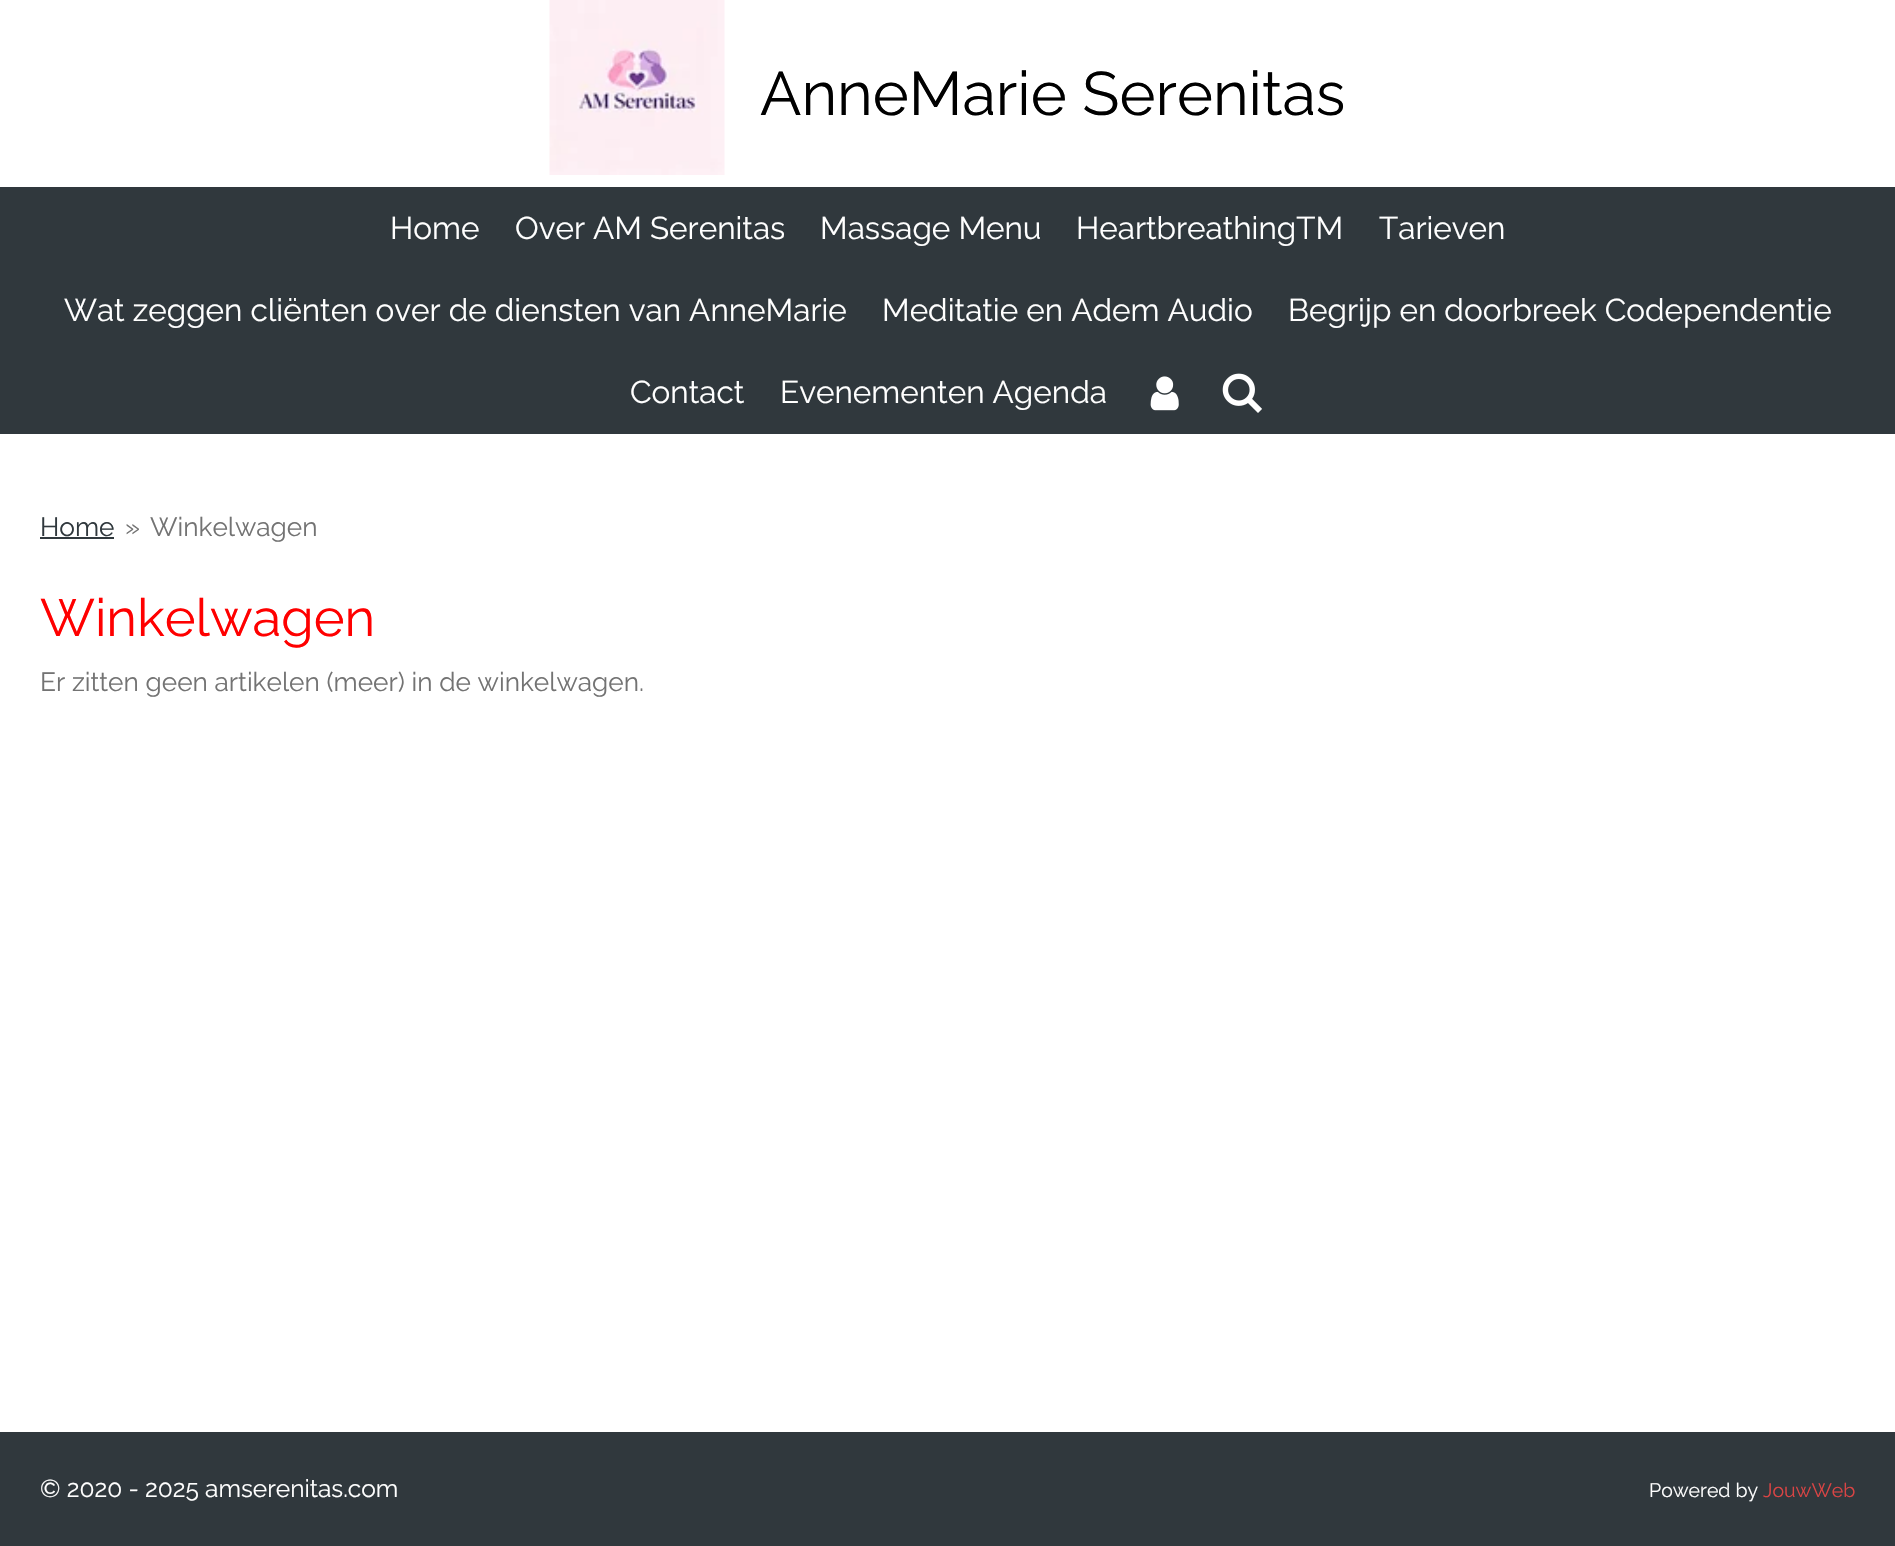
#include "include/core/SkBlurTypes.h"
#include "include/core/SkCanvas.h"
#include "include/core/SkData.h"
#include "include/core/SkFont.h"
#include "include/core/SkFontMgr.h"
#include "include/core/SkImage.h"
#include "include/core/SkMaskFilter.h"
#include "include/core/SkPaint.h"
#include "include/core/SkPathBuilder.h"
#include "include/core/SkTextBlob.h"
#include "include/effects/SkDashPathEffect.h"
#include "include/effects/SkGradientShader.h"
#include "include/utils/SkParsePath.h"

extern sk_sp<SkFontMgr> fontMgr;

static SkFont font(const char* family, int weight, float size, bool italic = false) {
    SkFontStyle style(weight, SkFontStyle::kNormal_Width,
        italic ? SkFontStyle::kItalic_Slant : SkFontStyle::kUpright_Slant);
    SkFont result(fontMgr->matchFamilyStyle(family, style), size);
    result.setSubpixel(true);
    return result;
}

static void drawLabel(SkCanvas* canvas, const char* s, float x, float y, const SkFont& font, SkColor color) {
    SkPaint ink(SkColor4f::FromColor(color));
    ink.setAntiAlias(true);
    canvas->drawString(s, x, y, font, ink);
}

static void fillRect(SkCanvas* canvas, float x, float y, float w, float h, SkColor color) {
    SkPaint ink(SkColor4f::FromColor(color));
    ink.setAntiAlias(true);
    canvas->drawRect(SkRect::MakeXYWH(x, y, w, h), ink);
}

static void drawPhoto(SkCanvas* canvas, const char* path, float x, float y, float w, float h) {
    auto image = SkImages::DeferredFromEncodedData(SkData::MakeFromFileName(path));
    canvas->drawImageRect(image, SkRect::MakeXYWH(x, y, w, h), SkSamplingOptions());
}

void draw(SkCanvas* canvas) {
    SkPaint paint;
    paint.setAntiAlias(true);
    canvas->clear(0xFFFFFFFF);
    drawPhoto(canvas, "assets/img1.png", 549, 0, 176, 175);
    SkFont font1 = font("Raleway", 400, 61.25f);
    drawLabel(canvas, "AnneMarie Serenitas", 760, 115, font1, 0xFF000000);
    fillRect(canvas, 0, 187, 1895, 247, 0xFF30383D);
    SkFont font2 = font("Raleway", 400, 31.5f);
    drawLabel(canvas, "Home", 390, 239, font2, 0xFFFFFFFF);
    drawLabel(canvas, "Over AM Serenitas", 515, 239, font2, 0xFFFFFFFF);
    drawLabel(canvas, "Massage Menu", 820, 239, font2, 0xFFFFFFFF);
    drawLabel(canvas, "HeartbreathingTM", 1076, 239, font2, 0xFFFFFFFF);
    drawLabel(canvas, "Tarieven", 1379, 239, font2, 0xFFFFFFFF);
    drawLabel(canvas, "Wat zeggen cliënten over de diensten van AnneMarie", 64, 321, font2, 0xFFFFFFFF);
    drawLabel(canvas, "Meditatie en Adem Audio", 882, 321, font2, 0xFFFFFFFF);
    drawLabel(canvas, "Begrijp en doorbreek Codependentie", 1288, 321, font2, 0xFFFFFFFF);
    drawLabel(canvas, "Contact", 630, 403, font2, 0xFFFFFFFF);
    drawLabel(canvas, "Evenementen Agenda", 780, 403, font2, 0xFFFFFFFF);
    drawPhoto(canvas, "assets/img2.png", 1150, 376, 29, 35);
    drawPhoto(canvas, "assets/img3.png", 1222, 373, 40, 40);
    SkFont font3 = font("Raleway", 400, 26.25f);
    drawLabel(canvas, "Home", 40, 536, font3, 0xFF30383D);
    fillRect(canvas, 40, 537, 74, 2, 0xFF30383D);
    drawLabel(canvas, "»", 125, 536, font3, 0xFF737373);
    drawLabel(canvas, "Winkelwagen", 150, 536, font3, 0xFF737373);
    SkFont font4 = font("Raleway", 400, 52.5f);
    drawLabel(canvas, "Winkelwagen", 40, 636, font4, 0xFFFF0000);
    drawLabel(canvas, "Er zitten geen artikelen (meer) in de winkelwagen.", 40, 691, font3, 0xFF737373);
    fillRect(canvas, 0, 1432, 1895, 114, 0xFF30383D);
    SkFont font5 = font("Raleway", 400, 24.5f);
    drawLabel(canvas, "© 2020 - 2025 amserenitas.com", 40, 1497, font5, 0xFFFFFFFF);
    SkFont font6 = font("Raleway", 400, 19.5f);
    drawLabel(canvas, "Powered by", 1649, 1497, font6, 0xFFFFFFFF);
    drawLabel(canvas, "JouwWeb", 1763, 1497, font6, 0xFFDA4444);
}
